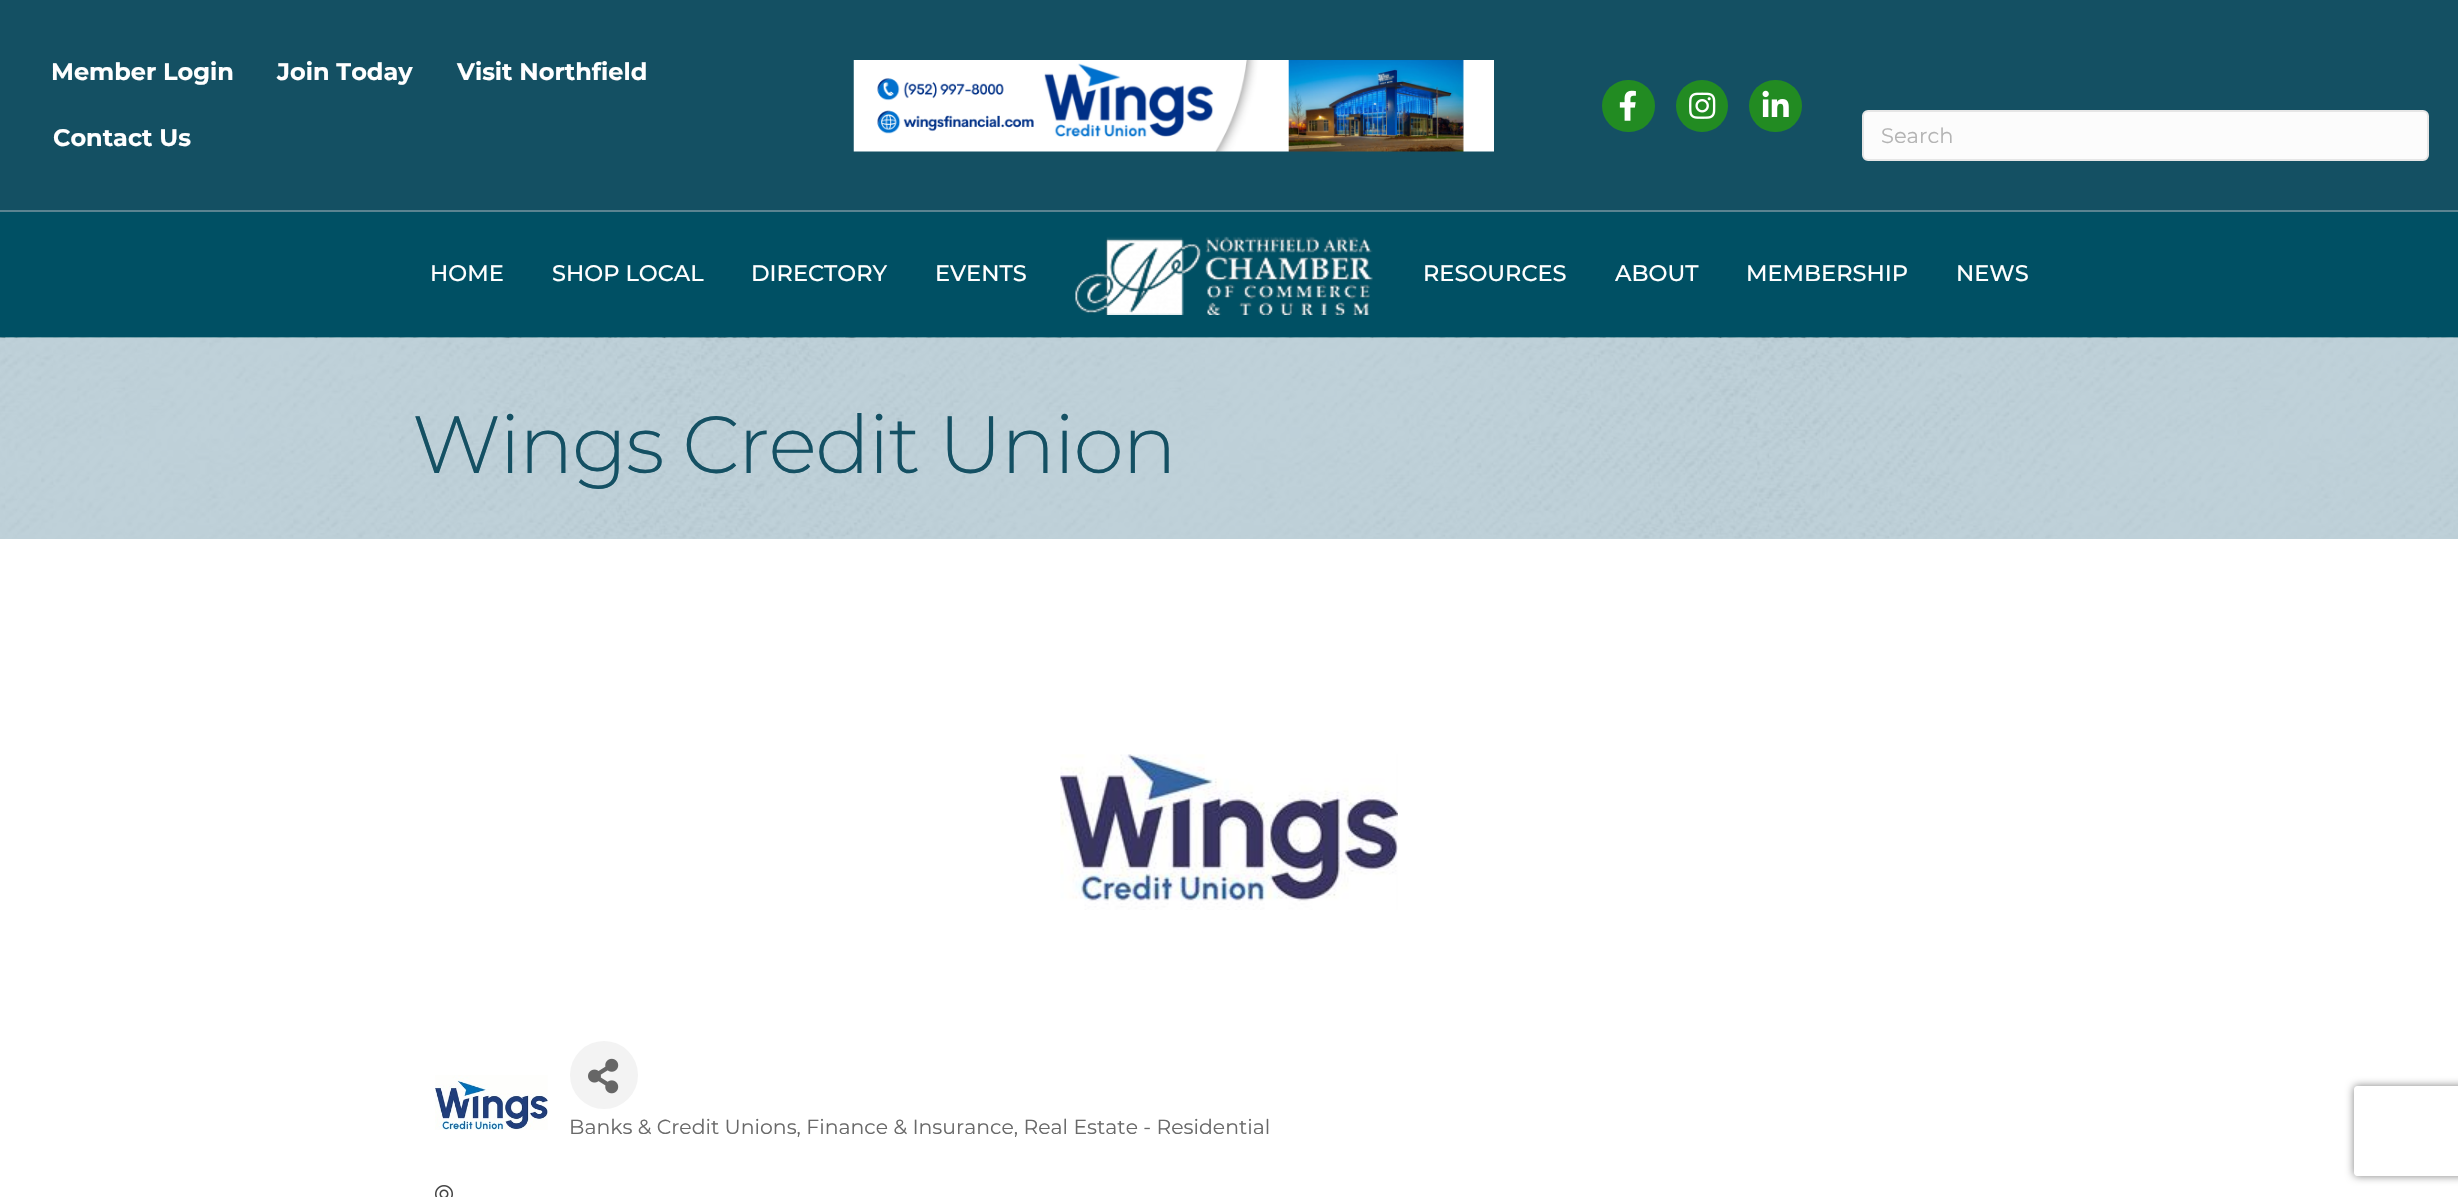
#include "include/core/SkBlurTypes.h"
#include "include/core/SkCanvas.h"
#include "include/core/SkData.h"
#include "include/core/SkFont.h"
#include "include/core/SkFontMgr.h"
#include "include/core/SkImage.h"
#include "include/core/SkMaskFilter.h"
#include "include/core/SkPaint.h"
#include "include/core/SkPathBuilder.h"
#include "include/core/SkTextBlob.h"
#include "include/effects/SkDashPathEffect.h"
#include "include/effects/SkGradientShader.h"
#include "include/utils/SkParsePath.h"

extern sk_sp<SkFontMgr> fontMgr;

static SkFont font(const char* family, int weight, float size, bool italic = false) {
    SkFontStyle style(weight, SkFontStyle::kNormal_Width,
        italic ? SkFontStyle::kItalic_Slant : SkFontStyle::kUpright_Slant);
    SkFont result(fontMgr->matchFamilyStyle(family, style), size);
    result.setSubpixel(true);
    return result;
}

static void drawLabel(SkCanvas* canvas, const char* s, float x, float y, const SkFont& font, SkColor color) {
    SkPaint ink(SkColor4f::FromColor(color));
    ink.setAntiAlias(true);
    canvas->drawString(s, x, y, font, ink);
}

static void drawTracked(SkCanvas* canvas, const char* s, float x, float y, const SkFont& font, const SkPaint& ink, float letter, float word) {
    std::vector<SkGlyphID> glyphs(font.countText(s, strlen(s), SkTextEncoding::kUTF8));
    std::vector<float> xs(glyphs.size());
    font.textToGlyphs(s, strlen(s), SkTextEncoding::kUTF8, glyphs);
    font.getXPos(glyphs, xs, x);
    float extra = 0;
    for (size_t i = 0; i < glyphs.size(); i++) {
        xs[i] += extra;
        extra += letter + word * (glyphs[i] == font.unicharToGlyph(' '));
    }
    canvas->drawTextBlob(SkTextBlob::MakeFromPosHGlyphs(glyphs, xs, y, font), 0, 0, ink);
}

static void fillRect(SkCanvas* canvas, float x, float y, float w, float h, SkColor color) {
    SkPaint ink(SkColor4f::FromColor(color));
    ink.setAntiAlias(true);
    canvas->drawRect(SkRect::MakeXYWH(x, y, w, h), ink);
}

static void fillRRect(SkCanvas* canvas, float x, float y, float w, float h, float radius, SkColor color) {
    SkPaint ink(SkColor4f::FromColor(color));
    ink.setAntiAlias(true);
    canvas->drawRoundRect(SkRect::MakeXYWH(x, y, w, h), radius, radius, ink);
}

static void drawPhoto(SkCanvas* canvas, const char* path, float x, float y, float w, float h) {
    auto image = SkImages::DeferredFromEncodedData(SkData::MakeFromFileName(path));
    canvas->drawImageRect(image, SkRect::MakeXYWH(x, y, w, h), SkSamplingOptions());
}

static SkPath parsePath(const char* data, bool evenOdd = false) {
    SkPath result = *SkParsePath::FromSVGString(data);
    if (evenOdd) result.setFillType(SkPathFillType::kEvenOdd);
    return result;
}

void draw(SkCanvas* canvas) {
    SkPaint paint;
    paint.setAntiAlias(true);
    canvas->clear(0xFFFFFFFF);
    fillRect(canvas, 0, 538, 2458, 1, 0xFFBFD1D9);
    fillRect(canvas, 0, 0, 2458, 210, 0xFF145063);
    fillRect(canvas, 0, 210, 2458, 2, 0xFF5A8491);
    SkFont font1 = font("Montserrat", 700, 24);
    drawLabel(canvas, "Member Login", 51, 80, font1, 0xFFFFFFFF);
    drawLabel(canvas, "Join Today", 277, 80, font1, 0xFFFFFFFF);
    drawLabel(canvas, "Visit Northfield", 457, 80, font1, 0xFFFFFFFF);
    drawLabel(canvas, "Contact Us", 53, 146, font1, 0xFFFFFFFF);
    drawPhoto(canvas, "assets/img1.png", 853, 60, 641, 92);
    fillRRect(canvas, 1602, 80, 53, 52, 26, 0xFF228B22);
    drawPhoto(canvas, "assets/img2.png", 1619, 90, 17, 31);
    paint.setColor(0xFF228B22);
    canvas->drawCircle(1702, 106, 26, paint);
    drawPhoto(canvas, "assets/img3.png", 1689, 92, 27, 27);
    fillRRect(canvas, 1749, 80, 53, 52, 26, 0xFF228B22);
    drawPhoto(canvas, "assets/img4.png", 1762, 90, 27, 27);
    paint.setColor(0xFFFCFCFC);
    canvas->drawRoundRect(SkRect::MakeXYWH(1863, 111, 565, 49), 5, 5, paint);
    paint.setStroke(true);
    paint.setStrokeWidth(2);
    paint.setColor(0xFFE6E6E6);
    canvas->drawRoundRect(SkRect::MakeXYWH(1863, 111, 565, 49), 5, 5, paint);
    SkFont font2 = font("Montserrat", 400, 21);
    drawLabel(canvas, "Search", 1881, 143, font2, 0xFFB4B4B4);
    fillRect(canvas, 0, 212, 2458, 126, 0xFF005064);
    SkFont font3 = font("Montserrat", 500, 22.5f);
    drawLabel(canvas, "HOME", 430, 281, font3, 0xFFFFFFFF);
    drawLabel(canvas, "SHOP LOCAL", 552, 281, font3, 0xFFFFFFFF);
    drawLabel(canvas, "DIRECTORY", 751, 281, font3, 0xFFFFFFFF);
    drawLabel(canvas, "EVENTS", 935, 281, font3, 0xFFFFFFFF);
    drawPhoto(canvas, "assets/img5.png", 1075, 236, 298, 79);
    drawLabel(canvas, "RESOURCES", 1423, 281, font3, 0xFFFFFFFF);
    drawLabel(canvas, "ABOUT", 1615, 281, font3, 0xFFFFFFFF);
    drawLabel(canvas, "MEMBERSHIP", 1746, 281, font3, 0xFFFFFFFF);
    drawLabel(canvas, "NEWS", 1956, 281, font3, 0xFFFFFFFF);
    drawPhoto(canvas, "assets/img6.png", 0, 337, 2458, 202);
    SkFont font4 = font("Montserrat", 300, 81);
    paint.setStroke(false);
    paint.setColor(0xFF145063);
    drawTracked(canvas, "Wings Credit Union", 412, 473, font4, paint, -1.5f, 0);
    drawPhoto(canvas, "assets/img7.png", 1060, 754, 338, 156);
    drawPhoto(canvas, "assets/img8.png", 435, 1075, 113, 55);
    paint.setColor(0xFFF3F3F3);
    canvas->drawCircle(604, 1075, 34, paint);
    drawPhoto(canvas, "assets/img9.png", 588, 1058, 31, 36);
    SkFont font5 = font("Montserrat", 400, 20.4f);
    drawLabel(canvas, "Banks & Credit Unions, Finance & Insurance, Real Estate - Residential", 569, 1134, font5, 0xFF696969);
    drawPhoto(canvas, "assets/img10.png", 435, 1185, 18, 12);
    canvas->save();
    canvas->clipPath(parsePath("M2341 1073H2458V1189H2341ZM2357 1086H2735C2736.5 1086 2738 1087.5 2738 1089V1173C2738 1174.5 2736.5 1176 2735 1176H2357C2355.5 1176 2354 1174.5 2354 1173V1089C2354 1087.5 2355.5 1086 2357 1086Z", true), true);
    paint.setColor(0xFF808080);
    paint.setMaskFilter(SkMaskFilter::MakeBlur(kNormal_SkBlurStyle, 4));
    canvas->drawRoundRect(SkRect::MakeXYWH(2354, 1086, 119, 90), 3, 3, paint);
    paint.setMaskFilter(nullptr);
    canvas->restore();
}
